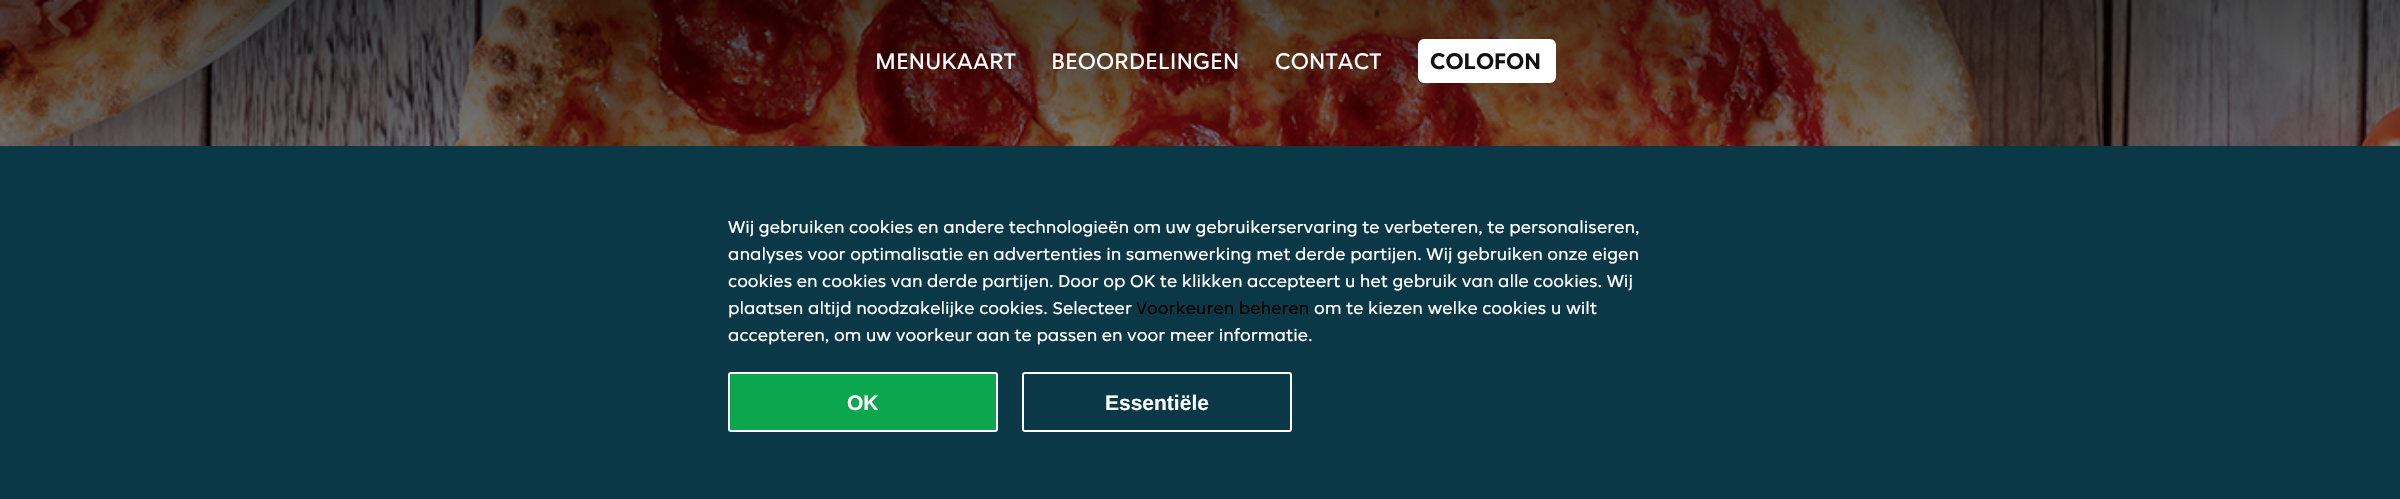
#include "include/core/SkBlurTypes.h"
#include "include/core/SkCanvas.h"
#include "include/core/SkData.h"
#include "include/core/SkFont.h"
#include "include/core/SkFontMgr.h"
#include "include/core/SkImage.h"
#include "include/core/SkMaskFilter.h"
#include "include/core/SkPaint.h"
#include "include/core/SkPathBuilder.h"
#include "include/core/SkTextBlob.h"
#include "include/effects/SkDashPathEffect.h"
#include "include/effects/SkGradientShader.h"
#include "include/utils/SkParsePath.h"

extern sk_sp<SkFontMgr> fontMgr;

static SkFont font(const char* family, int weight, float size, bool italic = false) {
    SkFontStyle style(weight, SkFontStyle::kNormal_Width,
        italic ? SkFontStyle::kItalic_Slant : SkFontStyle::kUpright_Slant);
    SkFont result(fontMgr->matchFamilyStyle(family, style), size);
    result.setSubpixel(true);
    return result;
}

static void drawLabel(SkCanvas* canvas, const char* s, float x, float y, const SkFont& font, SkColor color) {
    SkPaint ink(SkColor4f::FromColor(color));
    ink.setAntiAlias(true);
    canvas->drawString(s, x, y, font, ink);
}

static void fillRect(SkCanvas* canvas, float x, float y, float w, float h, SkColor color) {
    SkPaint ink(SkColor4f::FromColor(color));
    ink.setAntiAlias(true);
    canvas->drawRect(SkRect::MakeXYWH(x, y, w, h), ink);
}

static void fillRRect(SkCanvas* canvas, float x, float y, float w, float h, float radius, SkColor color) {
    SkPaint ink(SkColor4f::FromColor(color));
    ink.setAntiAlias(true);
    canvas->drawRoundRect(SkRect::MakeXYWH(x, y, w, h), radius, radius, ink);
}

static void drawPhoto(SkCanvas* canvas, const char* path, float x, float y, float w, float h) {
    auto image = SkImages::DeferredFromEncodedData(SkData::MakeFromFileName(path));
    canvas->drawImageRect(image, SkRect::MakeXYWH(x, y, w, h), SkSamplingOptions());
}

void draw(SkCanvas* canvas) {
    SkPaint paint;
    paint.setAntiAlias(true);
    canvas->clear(0xFFFFFFFF);
    drawPhoto(canvas, "assets/img1.png", 0, 0, 2400, 146);
    SkFont font1 = font("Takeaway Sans", 400, 24);
    drawLabel(canvas, "MENUKAART", 875, 69, font1, 0xFFFFFFFF);
    drawLabel(canvas, "BEOORDELINGEN", 1051, 69, font1, 0xFFFFFFFF);
    drawLabel(canvas, "CONTACT", 1275, 69, font1, 0xFFFFFFFF);
    fillRRect(canvas, 1418, 39, 138, 44, 6, 0xFFFFFFFF);
    SkFont font2 = font("Takeaway Sans", 700, 24);
    drawLabel(canvas, "COLOFON", 1430, 69, font2, 0xFF121212);
    fillRect(canvas, 0, 146, 2400, 353, 0xFF0A3847);
    SkFont font3 = font("Takeaway Sans", 400, 18);
    drawLabel(canvas, "Wij gebruiken cookies en andere technologieën om uw gebruikerservaring te verbeteren, te personaliseren,", 728, 233, font3, 0xFFFFFFFF);
    drawLabel(canvas, "analyses voor optimalisatie en advertenties in samenwerking met derde partijen. Wij gebruiken onze eigen", 728, 260, font3, 0xFFFFFFFF);
    drawLabel(canvas, "cookies en cookies van derde partijen. Door op OK te klikken accepteert u het gebruik van alle cookies. Wij", 728, 287, font3, 0xFFFFFFFF);
    drawLabel(canvas, "plaatsen altijd noodzakelijke cookies. Selecteer", 728, 314, font3, 0xFFFFFFFF);
    drawLabel(canvas, "Voorkeuren beheren", 1136, 314, font3, 0xFF000000);
    drawLabel(canvas, "om te kiezen welke cookies u wilt", 1314, 314, font3, 0xFFFFFFFF);
    drawLabel(canvas, "accepteren, om uw voorkeur aan te passen en voor meer informatie.", 728, 341, font3, 0xFFFFFFFF);
    paint.setColor(0xFF0CA64F);
    canvas->drawRoundRect(SkRect::MakeXYWH(729, 373, 268, 58), 2, 2, paint);
    paint.setStroke(true);
    paint.setStrokeWidth(2);
    paint.setColor(0xFFFFFFFF);
    canvas->drawRoundRect(SkRect::MakeXYWH(729, 373, 268, 58), 2, 2, paint);
    SkFont font4 = font("Liberation Sans", 700, 21);
    drawLabel(canvas, "OK", 847, 410, font4, 0xFFFFFFFF);
    canvas->drawRoundRect(SkRect::MakeXYWH(1023, 373, 268, 58), 2, 2, paint);
    drawLabel(canvas, "Essentiële", 1105, 410, font4, 0xFFFFFFFF);
}
